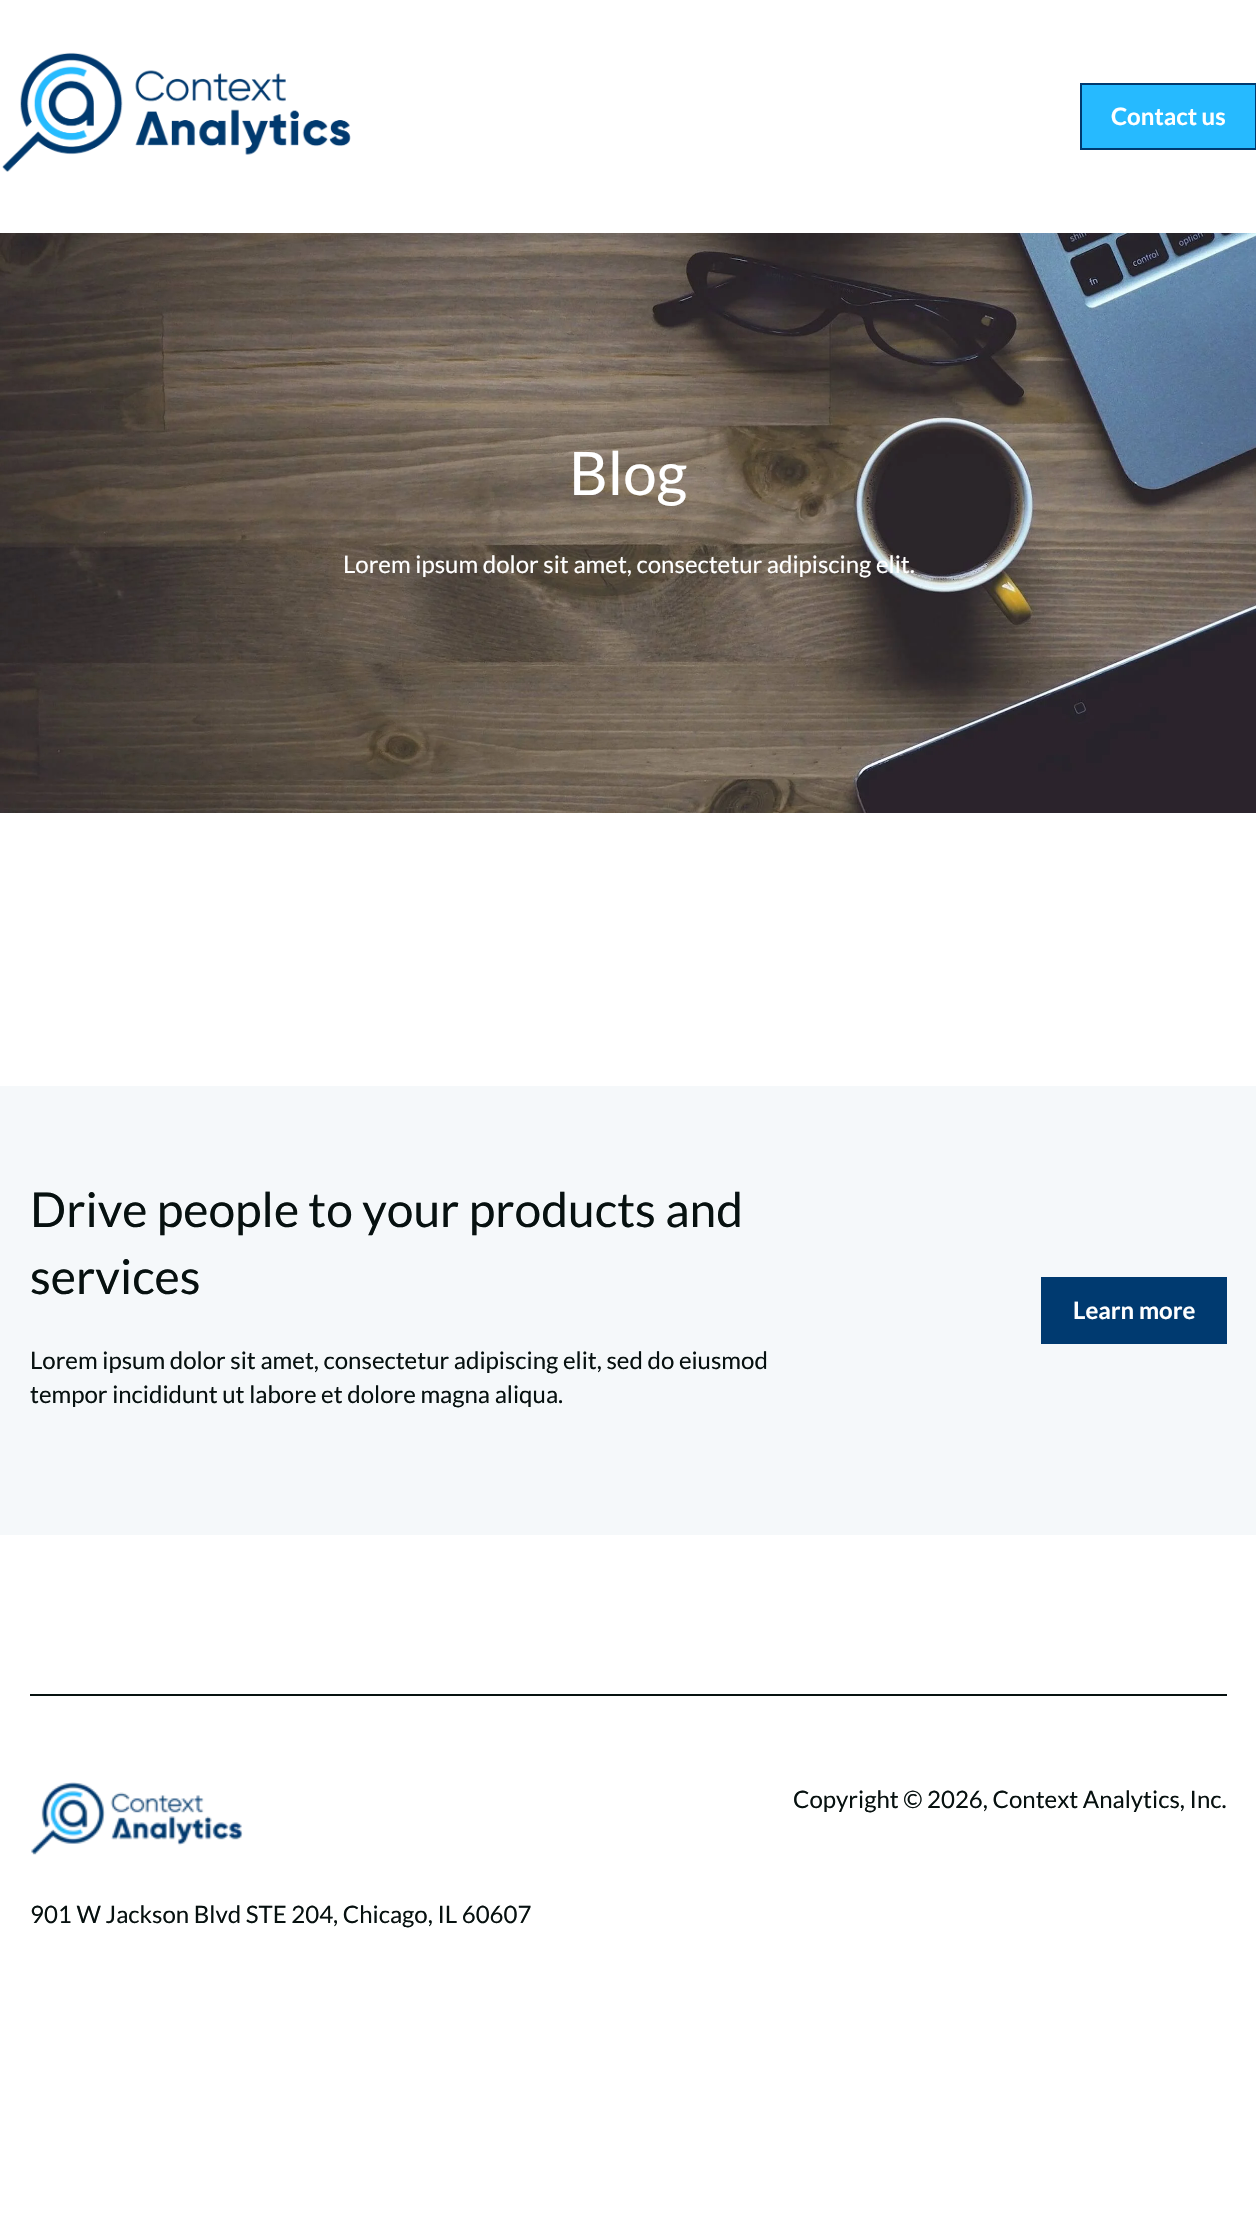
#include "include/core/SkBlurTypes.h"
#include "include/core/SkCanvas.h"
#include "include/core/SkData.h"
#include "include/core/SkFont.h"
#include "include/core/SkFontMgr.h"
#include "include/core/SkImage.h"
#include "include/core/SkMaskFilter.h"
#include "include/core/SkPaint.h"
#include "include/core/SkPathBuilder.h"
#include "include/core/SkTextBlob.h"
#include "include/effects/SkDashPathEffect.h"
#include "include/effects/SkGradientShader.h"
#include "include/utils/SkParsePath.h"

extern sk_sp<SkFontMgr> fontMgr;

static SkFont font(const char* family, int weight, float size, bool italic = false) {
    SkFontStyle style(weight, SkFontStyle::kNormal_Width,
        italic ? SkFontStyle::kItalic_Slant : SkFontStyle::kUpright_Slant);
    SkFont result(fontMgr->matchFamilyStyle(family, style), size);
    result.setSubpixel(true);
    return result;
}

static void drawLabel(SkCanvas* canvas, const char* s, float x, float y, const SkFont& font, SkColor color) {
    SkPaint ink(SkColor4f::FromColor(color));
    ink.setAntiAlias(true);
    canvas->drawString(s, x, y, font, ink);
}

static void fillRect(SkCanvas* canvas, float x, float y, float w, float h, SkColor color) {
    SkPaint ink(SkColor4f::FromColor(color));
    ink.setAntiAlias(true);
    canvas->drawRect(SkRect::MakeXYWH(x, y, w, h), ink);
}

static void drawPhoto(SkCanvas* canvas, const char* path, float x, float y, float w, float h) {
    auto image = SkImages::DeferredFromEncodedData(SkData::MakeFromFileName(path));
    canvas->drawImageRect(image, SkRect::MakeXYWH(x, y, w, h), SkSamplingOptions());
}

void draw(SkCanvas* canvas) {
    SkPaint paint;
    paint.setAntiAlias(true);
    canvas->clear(0xFFFFFFFF);
    drawPhoto(canvas, "assets/img1.png", 2, 52, 349, 120);
    paint.setColor(0xFF26BAFF);
    canvas->drawRect(SkRect::MakeXYWH(1081, 84, 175, 65), paint);
    paint.setStroke(true);
    paint.setStrokeWidth(2);
    paint.setColor(0xFF003A70);
    canvas->drawRect(SkRect::MakeXYWH(1081, 84, 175, 65), paint);
    SkFont font1 = font("Lato", 700, 24);
    drawLabel(canvas, "Contact us", 1111, 125, font1, 0xFFFFFFFF);
    drawPhoto(canvas, "assets/img2.png", 0, 233, 1256, 580);
    SkFont font2 = font("Lato", 400, 60);
    drawLabel(canvas, "Blog", 569, 495, font2, 0xFFFFFFFF);
    SkFont font3 = font("Lato", 400, 24);
    drawLabel(canvas, "Lorem ipsum dolor sit amet, consectetur adipiscing elit.", 343, 573, font3, 0xFFFFFFFF);
    fillRect(canvas, 0, 1086, 1256, 449, 0xFFF5F8FA);
    SkFont font4 = font("Lato", 400, 48);
    drawLabel(canvas, "Drive people to your products and", 30, 1227, font4, 0xFF071110);
    drawLabel(canvas, "services", 30, 1294, font4, 0xFF071110);
    drawLabel(canvas, "Lorem ipsum dolor sit amet, consectetur adipiscing elit, sed do eiusmod", 30, 1369, font3, 0xFF071110);
    drawLabel(canvas, "tempor incididunt ut labore et dolore magna aliqua.", 30, 1403, font3, 0xFF071110);
    fillRect(canvas, 1041, 1277, 186, 67, 0xFF003A70);
    drawLabel(canvas, "Learn more", 1073, 1319, font1, 0xFFFFFFFF);
    fillRect(canvas, 30, 1694, 1197, 2, 0xFF071110);
    drawLabel(canvas, "Copyright © 2026, Context Analytics, Inc.", 793, 1808, font3, 0xFF071110);
    drawPhoto(canvas, "assets/img3.png", 31, 1782, 212, 73);
    drawLabel(canvas, "901 W Jackson Blvd STE 204, Chicago, IL 60607", 30, 1923, font3, 0xFF071110);
}
